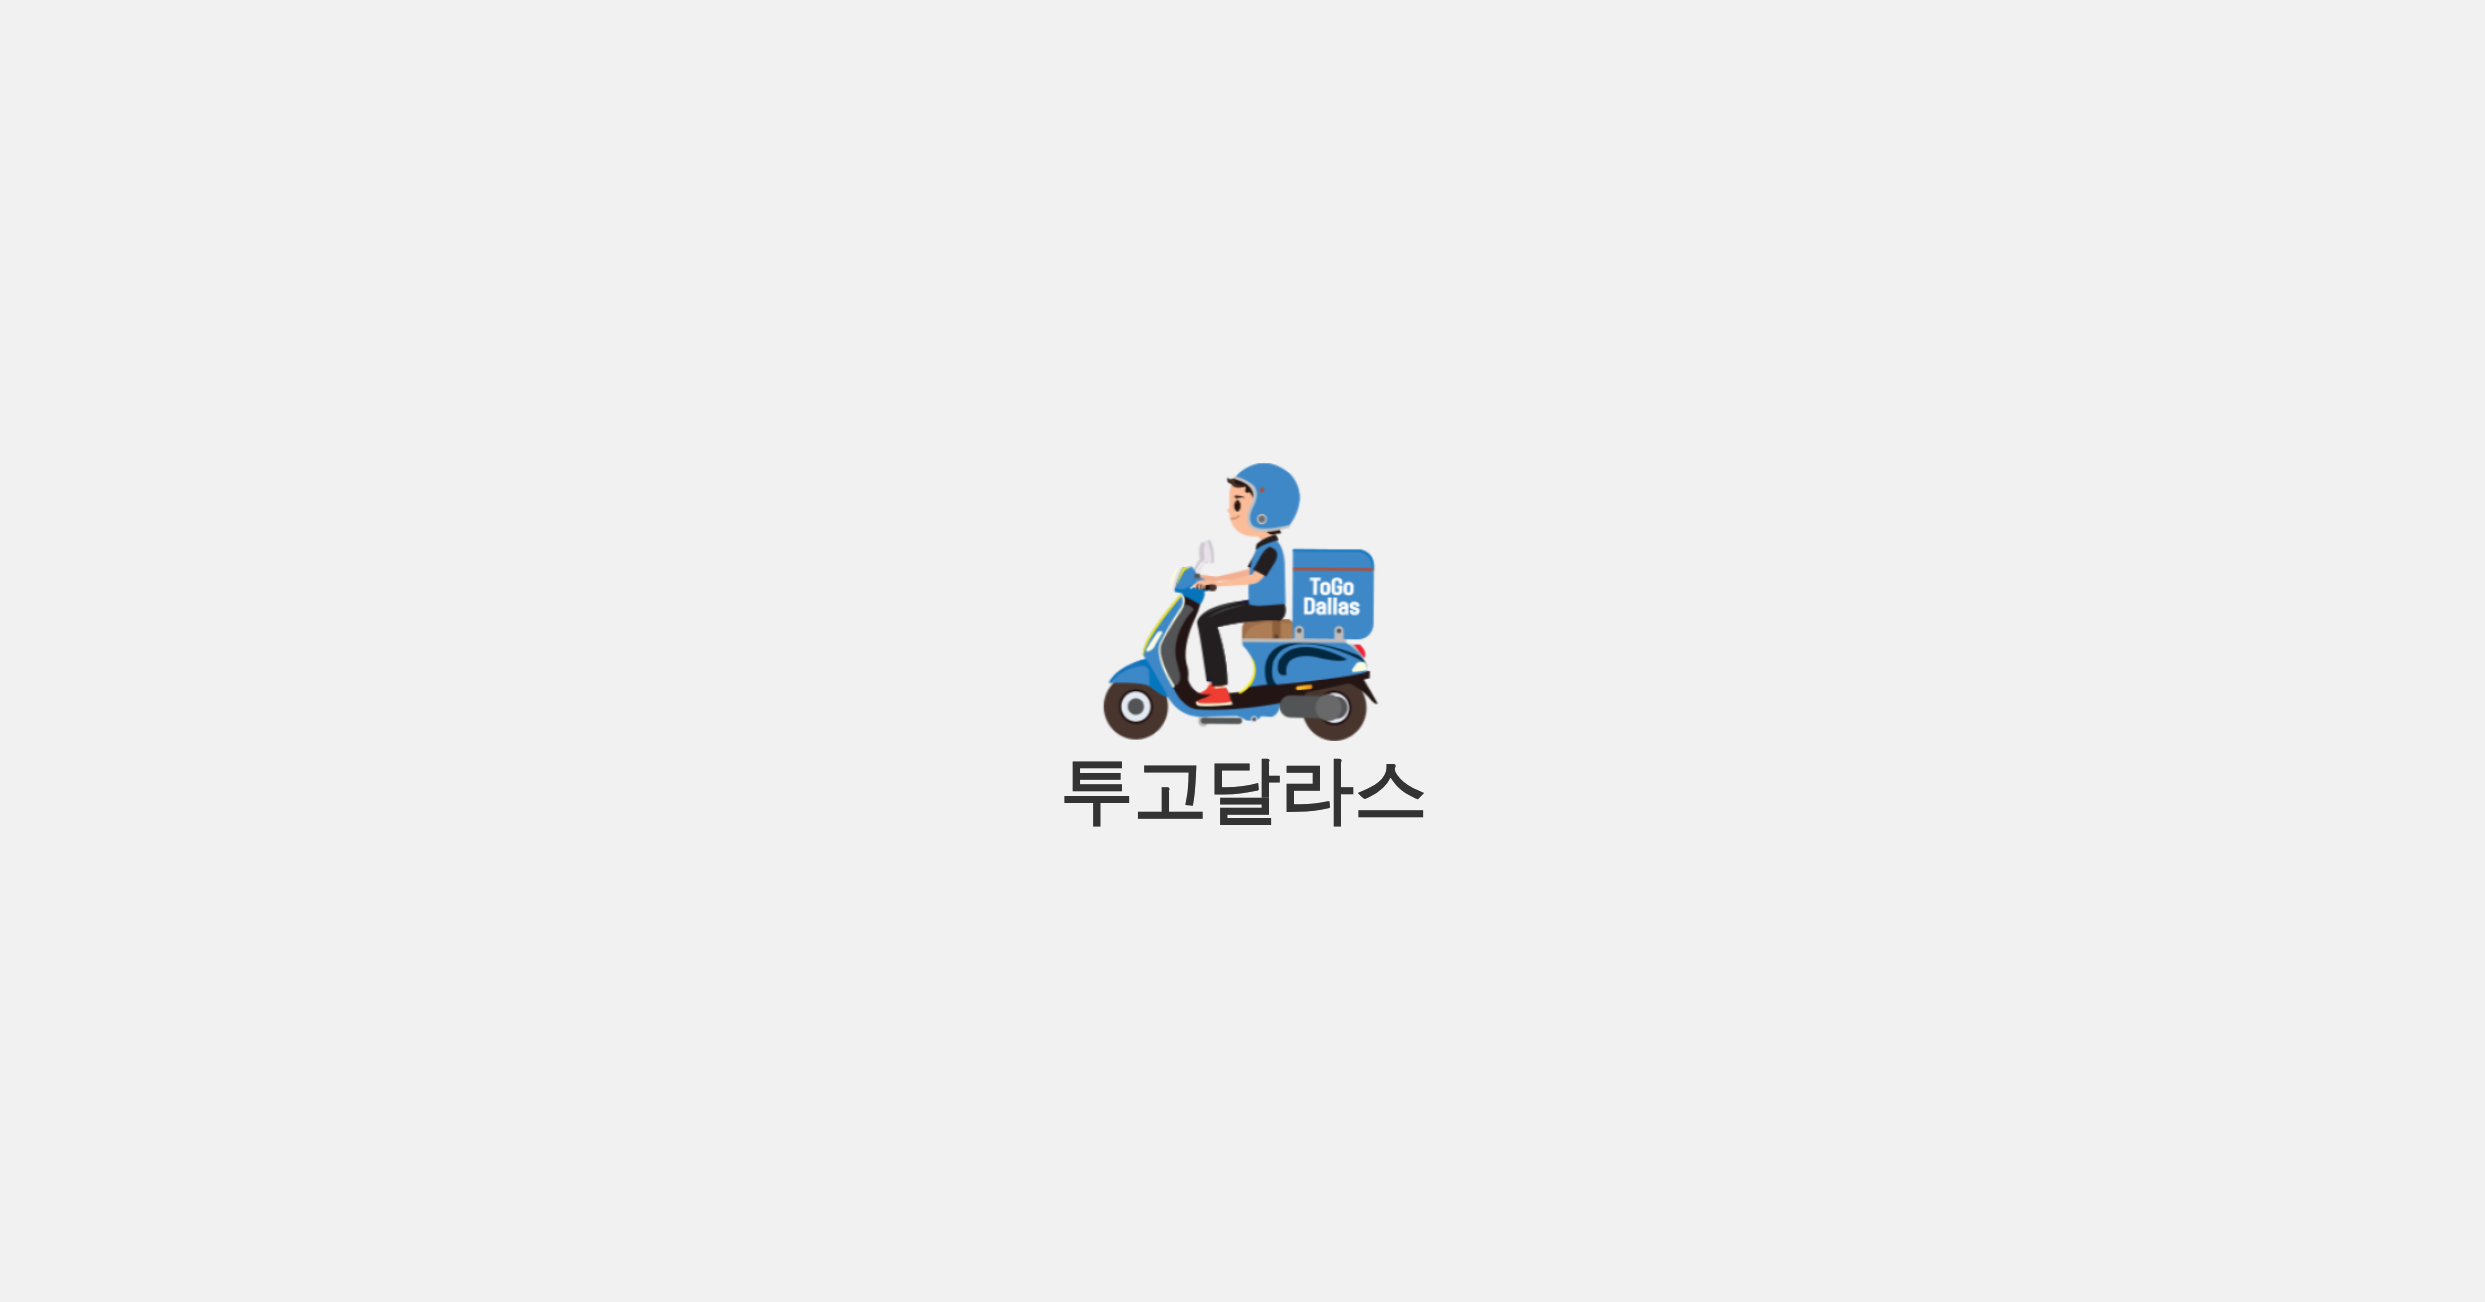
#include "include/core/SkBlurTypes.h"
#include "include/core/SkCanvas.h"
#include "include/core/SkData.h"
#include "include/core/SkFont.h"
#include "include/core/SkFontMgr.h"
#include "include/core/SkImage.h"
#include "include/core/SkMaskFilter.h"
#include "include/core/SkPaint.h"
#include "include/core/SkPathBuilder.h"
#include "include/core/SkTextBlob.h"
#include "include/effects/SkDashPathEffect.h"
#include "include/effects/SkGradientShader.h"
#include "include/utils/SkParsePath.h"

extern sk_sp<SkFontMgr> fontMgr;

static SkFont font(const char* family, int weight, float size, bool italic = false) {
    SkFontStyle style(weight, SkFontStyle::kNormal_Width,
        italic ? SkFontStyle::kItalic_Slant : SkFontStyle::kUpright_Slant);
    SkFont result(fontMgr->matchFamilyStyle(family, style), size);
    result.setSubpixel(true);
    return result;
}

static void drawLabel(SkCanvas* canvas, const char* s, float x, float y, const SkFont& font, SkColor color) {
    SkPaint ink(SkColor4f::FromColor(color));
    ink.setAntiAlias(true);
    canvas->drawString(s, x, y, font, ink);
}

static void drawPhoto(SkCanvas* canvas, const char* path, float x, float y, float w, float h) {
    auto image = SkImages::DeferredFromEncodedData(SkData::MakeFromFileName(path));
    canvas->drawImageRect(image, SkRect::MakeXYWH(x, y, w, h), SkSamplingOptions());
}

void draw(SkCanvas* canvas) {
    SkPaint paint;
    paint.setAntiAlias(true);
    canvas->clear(0xFFF1F1F1);
    drawPhoto(canvas, "assets/img1.png", 1102, 463, 277, 278);
    SkFont font1 = font("WenQuanYi Zen Hei", 700, 73.5f);
    drawLabel(canvas, "투고달라스", 1059, 816, font1, 0xFF333333);
}
